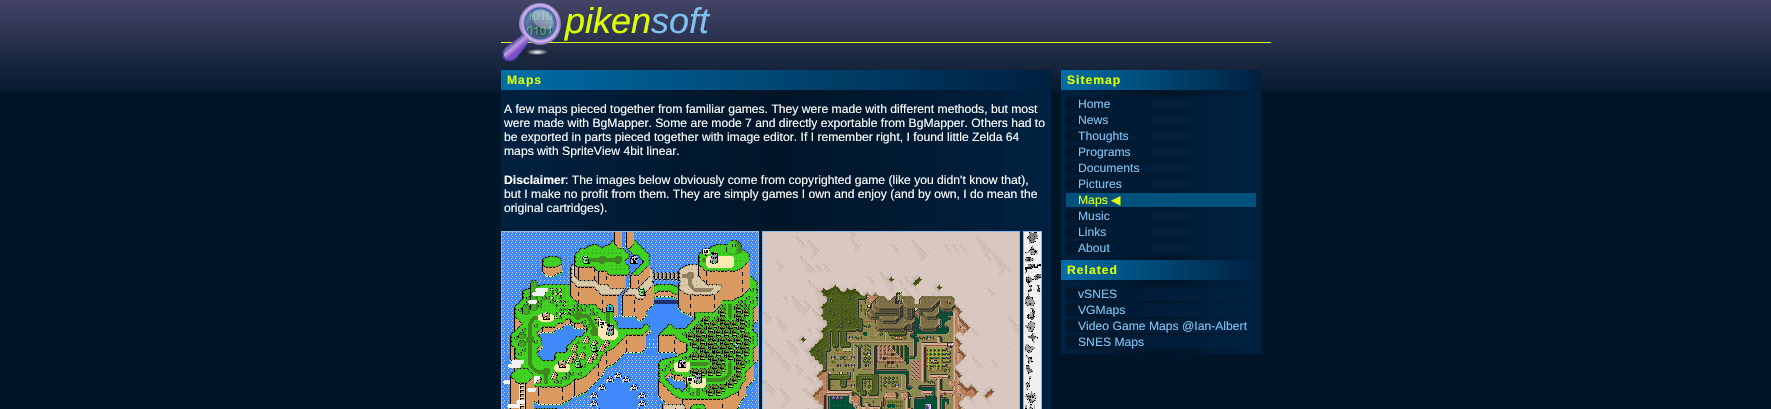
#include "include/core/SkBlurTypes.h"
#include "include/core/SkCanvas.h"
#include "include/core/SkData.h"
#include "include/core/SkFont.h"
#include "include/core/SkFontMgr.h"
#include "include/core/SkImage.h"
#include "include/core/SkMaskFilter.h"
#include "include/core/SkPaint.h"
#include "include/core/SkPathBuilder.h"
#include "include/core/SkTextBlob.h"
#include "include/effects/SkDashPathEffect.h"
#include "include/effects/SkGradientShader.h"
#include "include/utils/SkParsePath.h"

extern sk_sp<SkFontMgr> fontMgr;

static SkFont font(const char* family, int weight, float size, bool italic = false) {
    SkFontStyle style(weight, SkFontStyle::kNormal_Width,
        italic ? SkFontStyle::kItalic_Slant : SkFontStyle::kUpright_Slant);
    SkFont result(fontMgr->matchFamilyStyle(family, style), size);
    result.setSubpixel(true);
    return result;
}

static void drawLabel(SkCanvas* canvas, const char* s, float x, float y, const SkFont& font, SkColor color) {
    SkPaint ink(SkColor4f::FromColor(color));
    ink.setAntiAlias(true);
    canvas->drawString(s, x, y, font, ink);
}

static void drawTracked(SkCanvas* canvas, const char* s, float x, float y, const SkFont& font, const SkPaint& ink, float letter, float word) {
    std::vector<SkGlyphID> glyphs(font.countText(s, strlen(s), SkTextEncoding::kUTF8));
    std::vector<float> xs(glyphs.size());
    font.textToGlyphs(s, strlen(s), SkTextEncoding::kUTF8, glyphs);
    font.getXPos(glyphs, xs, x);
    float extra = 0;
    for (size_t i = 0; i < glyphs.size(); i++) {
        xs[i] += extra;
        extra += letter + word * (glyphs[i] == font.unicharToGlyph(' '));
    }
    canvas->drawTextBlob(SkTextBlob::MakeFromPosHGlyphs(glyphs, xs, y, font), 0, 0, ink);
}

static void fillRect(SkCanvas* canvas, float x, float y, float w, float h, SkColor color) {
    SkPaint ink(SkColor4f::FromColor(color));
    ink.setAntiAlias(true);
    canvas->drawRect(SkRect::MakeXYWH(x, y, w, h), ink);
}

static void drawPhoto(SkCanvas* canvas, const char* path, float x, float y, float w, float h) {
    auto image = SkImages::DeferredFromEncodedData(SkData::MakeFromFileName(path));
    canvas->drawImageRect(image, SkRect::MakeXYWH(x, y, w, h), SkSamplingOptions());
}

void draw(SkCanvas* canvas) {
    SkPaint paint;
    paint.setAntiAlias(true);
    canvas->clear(0xFF001628);
    drawPhoto(canvas, "assets/img1.png", 0, 0, 1771, 92);
    fillRect(canvas, 501, 42, 770, 1, 0xFFDEFF00);
    drawPhoto(canvas, "assets/img2.png", 502, 2, 59, 60);
    SkFont font1 = font("Liberation Sans", 400, 36, true);
    drawLabel(canvas, "piken", 565, 33, font1, 0xFFDEFF00);
    drawLabel(canvas, "soft", 651, 33, font1, 0xFF80C0F0);
    fillRect(canvas, 501, 90, 550, 319, 0xFF002040);
    drawPhoto(canvas, "assets/img3.png", 550, 90, 453, 319);
    fillRect(canvas, 501, 70, 25, 20, 0xFF006DA6);
    drawPhoto(canvas, "assets/img4.png", 526, 70, 525, 20);
    SkFont font2 = font("Liberation Sans", 700, 12.15f);
    paint.setColor(0xFFDEFF00);
    drawTracked(canvas, "Maps", 507, 84, font2, paint, 1, 0);
    SkFont font3 = font("Liberation Sans", 400, 12.15f);
    drawLabel(canvas, "A few maps pieced together from familiar games. They were made with different methods, but most", 504, 113, font3, 0xFFFFFFFF);
    drawLabel(canvas, "were made with BgMapper. Some are mode 7 and directly exportable from BgMapper. Others had to", 504, 127, font3, 0xFFFFFFFF);
    drawLabel(canvas, "be exported in parts pieced together with image editor. If I remember right, I found little Zelda 64", 504, 141, font3, 0xFFFFFFFF);
    drawLabel(canvas, "maps with SpriteView 4bit linear.", 504, 155, font3, 0xFFFFFFFF);
    drawLabel(canvas, "Disclaimer", 504, 184, font2, 0xFFFFFFFF);
    drawLabel(canvas, ": The images below obviously come from copyrighted game (like you didn't know that),", 565, 184, font3, 0xFFFFFFFF);
    drawLabel(canvas, "but I make no profit from them. They are simply games I own and enjoy (and by own, I do mean the", 504, 198, font3, 0xFFFFFFFF);
    drawLabel(canvas, "original cartridges).", 504, 212, font3, 0xFFFFFFFF);
    paint.setStroke(true);
    paint.setStrokeWidth(1);
    paint.setColor(0xFF80C0F0);
    canvas->drawRect(SkRect::MakeXYWH(501.5f, 231.5f, 257, 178), paint);
    canvas->drawRect(SkRect::MakeXYWH(762.5f, 231.5f, 257, 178), paint);
    canvas->drawRect(SkRect::MakeXYWH(1023.5f, 231.5f, 18, 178), paint);
    drawPhoto(canvas, "assets/img5.png", 502, 232, 256, 177);
    drawPhoto(canvas, "assets/img6.png", 763, 232, 256, 177);
    drawPhoto(canvas, "assets/img7.png", 1024, 232, 17, 177);
    fillRect(canvas, 1061, 90, 200, 264, 0xFF002040);
    drawPhoto(canvas, "assets/img8.png", 1079, 90, 164, 264);
    fillRect(canvas, 1061, 70, 10, 20, 0xFF006DA6);
    drawPhoto(canvas, "assets/img9.png", 1071, 70, 190, 20);
    paint.setStroke(false);
    paint.setColor(0xFFDEFF00);
    drawTracked(canvas, "Sitemap", 1067, 84, font2, paint, 1, 0);
    fillRect(canvas, 1208, 97, 35, 14, 0xFF002040);
    drawPhoto(canvas, "assets/img10.png", 1066, 97, 142, 14);
    drawLabel(canvas, "Home", 1078, 108, font3, 0xFF80C0F0);
    fillRect(canvas, 1208, 113, 35, 14, 0xFF002040);
    drawPhoto(canvas, "assets/img10.png", 1066, 113, 142, 14);
    drawLabel(canvas, "News", 1078, 124, font3, 0xFF80C0F0);
    fillRect(canvas, 1208, 129, 35, 14, 0xFF002040);
    drawPhoto(canvas, "assets/img10.png", 1066, 129, 142, 14);
    drawLabel(canvas, "Thoughts", 1078, 140, font3, 0xFF80C0F0);
    fillRect(canvas, 1208, 145, 35, 14, 0xFF002040);
    drawPhoto(canvas, "assets/img10.png", 1066, 145, 142, 14);
    drawLabel(canvas, "Programs", 1078, 156, font3, 0xFF80C0F0);
    fillRect(canvas, 1208, 161, 35, 14, 0xFF002040);
    drawPhoto(canvas, "assets/img10.png", 1066, 161, 142, 14);
    drawLabel(canvas, "Documents", 1078, 172, font3, 0xFF80C0F0);
    fillRect(canvas, 1208, 177, 35, 14, 0xFF002040);
    drawPhoto(canvas, "assets/img10.png", 1066, 177, 142, 14);
    drawLabel(canvas, "Pictures", 1078, 188, font3, 0xFF80C0F0);
    fillRect(canvas, 1066, 193, 190, 14, 0xFF00517C);
    drawLabel(canvas, "Maps", 1078, 204, font3, 0xFFDEFF00);
    SkFont font4 = font("DejaVu Sans", 400, 12.15f);
    drawLabel(canvas, "◀", 1111, 204, font4, 0xFFDEFF00);
    fillRect(canvas, 1208, 209, 35, 14, 0xFF002040);
    drawPhoto(canvas, "assets/img10.png", 1066, 209, 142, 14);
    drawLabel(canvas, "Music", 1078, 220, font3, 0xFF80C0F0);
    fillRect(canvas, 1208, 225, 35, 14, 0xFF002040);
    drawPhoto(canvas, "assets/img10.png", 1066, 225, 142, 14);
    drawLabel(canvas, "Links", 1078, 236, font3, 0xFF80C0F0);
    fillRect(canvas, 1208, 241, 35, 14, 0xFF002040);
    drawPhoto(canvas, "assets/img10.png", 1066, 241, 142, 14);
    drawLabel(canvas, "About", 1078, 252, font3, 0xFF80C0F0);
    fillRect(canvas, 1061, 260, 10, 20, 0xFF006DA6);
    drawPhoto(canvas, "assets/img9.png", 1071, 260, 190, 20);
    drawTracked(canvas, "Related", 1067, 274, font2, paint, 1, 0);
    fillRect(canvas, 1208, 287, 35, 14, 0xFF002040);
    drawPhoto(canvas, "assets/img10.png", 1066, 287, 142, 14);
    drawLabel(canvas, "vSNES", 1078, 298, font3, 0xFF80C0F0);
    fillRect(canvas, 1208, 303, 35, 14, 0xFF002040);
    drawPhoto(canvas, "assets/img10.png", 1066, 303, 142, 14);
    drawLabel(canvas, "VGMaps", 1078, 314, font3, 0xFF80C0F0);
    fillRect(canvas, 1208, 319, 35, 14, 0xFF002040);
    drawPhoto(canvas, "assets/img10.png", 1066, 319, 142, 14);
    drawLabel(canvas, "Video Game Maps @Ian-Albert", 1078, 330, font3, 0xFF80C0F0);
    fillRect(canvas, 1208, 335, 35, 14, 0xFF002040);
    drawPhoto(canvas, "assets/img10.png", 1066, 335, 142, 14);
    drawLabel(canvas, "SNES Maps", 1078, 346, font3, 0xFF80C0F0);
}
